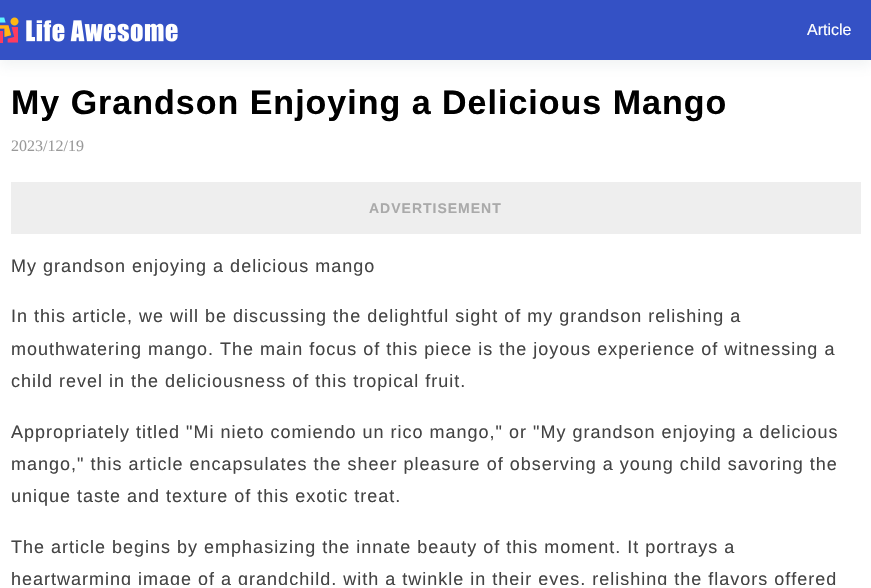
#include "include/core/SkBlurTypes.h"
#include "include/core/SkCanvas.h"
#include "include/core/SkData.h"
#include "include/core/SkFont.h"
#include "include/core/SkFontMgr.h"
#include "include/core/SkImage.h"
#include "include/core/SkMaskFilter.h"
#include "include/core/SkPaint.h"
#include "include/core/SkPathBuilder.h"
#include "include/core/SkTextBlob.h"
#include "include/effects/SkDashPathEffect.h"
#include "include/effects/SkGradientShader.h"
#include "include/utils/SkParsePath.h"

extern sk_sp<SkFontMgr> fontMgr;

static SkFont font(const char* family, int weight, float size, bool italic = false) {
    SkFontStyle style(weight, SkFontStyle::kNormal_Width,
        italic ? SkFontStyle::kItalic_Slant : SkFontStyle::kUpright_Slant);
    SkFont result(fontMgr->matchFamilyStyle(family, style), size);
    result.setSubpixel(true);
    return result;
}

static void drawLabel(SkCanvas* canvas, const char* s, float x, float y, const SkFont& font, SkColor color) {
    SkPaint ink(SkColor4f::FromColor(color));
    ink.setAntiAlias(true);
    canvas->drawString(s, x, y, font, ink);
}

static void drawTracked(SkCanvas* canvas, const char* s, float x, float y, const SkFont& font, const SkPaint& ink, float letter, float word) {
    std::vector<SkGlyphID> glyphs(font.countText(s, strlen(s), SkTextEncoding::kUTF8));
    std::vector<float> xs(glyphs.size());
    font.textToGlyphs(s, strlen(s), SkTextEncoding::kUTF8, glyphs);
    font.getXPos(glyphs, xs, x);
    float extra = 0;
    for (size_t i = 0; i < glyphs.size(); i++) {
        xs[i] += extra;
        extra += letter + word * (glyphs[i] == font.unicharToGlyph(' '));
    }
    canvas->drawTextBlob(SkTextBlob::MakeFromPosHGlyphs(glyphs, xs, y, font), 0, 0, ink);
}

static void fillRect(SkCanvas* canvas, float x, float y, float w, float h, SkColor color) {
    SkPaint ink(SkColor4f::FromColor(color));
    ink.setAntiAlias(true);
    canvas->drawRect(SkRect::MakeXYWH(x, y, w, h), ink);
}

static void drawPhoto(SkCanvas* canvas, const char* path, float x, float y, float w, float h) {
    auto image = SkImages::DeferredFromEncodedData(SkData::MakeFromFileName(path));
    canvas->drawImageRect(image, SkRect::MakeXYWH(x, y, w, h), SkSamplingOptions());
}

void draw(SkCanvas* canvas) {
    SkPaint paint;
    paint.setAntiAlias(true);
    canvas->clear(0xFFFFFFFF);
    paint.setColor(0x1A778895);
    paint.setMaskFilter(SkMaskFilter::MakeBlur(kNormal_SkBlurStyle, 6));
    canvas->drawRect(SkRect::MakeXYWH(0, 6, 871, 60), paint);
    paint.setMaskFilter(nullptr);
    fillRect(canvas, 0, 0, 871, 60, 0xFF3451C5);
    drawPhoto(canvas, "assets/img1.png", 0, 17, 178, 26);
    SkFont font1 = font("Liberation Sans", 400, 16);
    drawLabel(canvas, "Article", 807, 35, font1, 0xFFFFFFFF);
    SkFont font2 = font("Liberation Sans", 700, 34);
    paint.setColor(0xFF000000);
    drawTracked(canvas, "My Grandson Enjoying a Delicious Mango", 11, 114, font2, paint, 1, 0);
    SkFont font3 = font("Liberation Serif", 400, 16);
    drawLabel(canvas, "2023/12/19", 11, 151, font3, 0xFF999999);
    fillRect(canvas, 11, 182, 850, 52, 0xFFEEEEEE);
    SkFont font4 = font("Liberation Sans", 700, 14);
    paint.setColor(0xFFAAAAAA);
    drawTracked(canvas, "ADVERTISEMENT", 369, 213, font4, paint, 1, 0);
    SkFont font5 = font("Liberation Sans", 400, 18);
    paint.setColor(0xFF444444);
    drawTracked(canvas, "My grandson enjoying a delicious mango", 11, 272, font5, paint, 1, 0);
    drawTracked(canvas, "In this article, we will be discussing the delightful sight of my grandson relishing a", 11, 322, font5, paint, 1, 0);
    drawTracked(canvas, "mouthwatering mango. The main focus of this piece is the joyous experience of witnessing a", 11, 355, font5, paint, 1, 0);
    drawTracked(canvas, "child revel in the deliciousness of this tropical fruit.", 11, 387, font5, paint, 1, 0);
    drawTracked(canvas, "Appropriately titled \"Mi nieto comiendo un rico mango,\" or \"My grandson enjoying a delicious", 11, 438, font5, paint, 1, 0);
    drawTracked(canvas, "mango,\" this article encapsulates the sheer pleasure of observing a young child savoring the", 11, 470, font5, paint, 1, 0);
    drawTracked(canvas, "unique taste and texture of this exotic treat.", 11, 502, font5, paint, 1, 0);
    drawTracked(canvas, "The article begins by emphasizing the innate beauty of this moment. It portrays a", 11, 553, font5, paint, 1, 0);
    drawTracked(canvas, "heartwarming image of a grandchild, with a twinkle in their eyes, relishing the flavors offered", 11, 585, font5, paint, 1, 0);
    fillRect(canvas, 25, 585, 806, 3, 0xFFFFFFFF);
}
